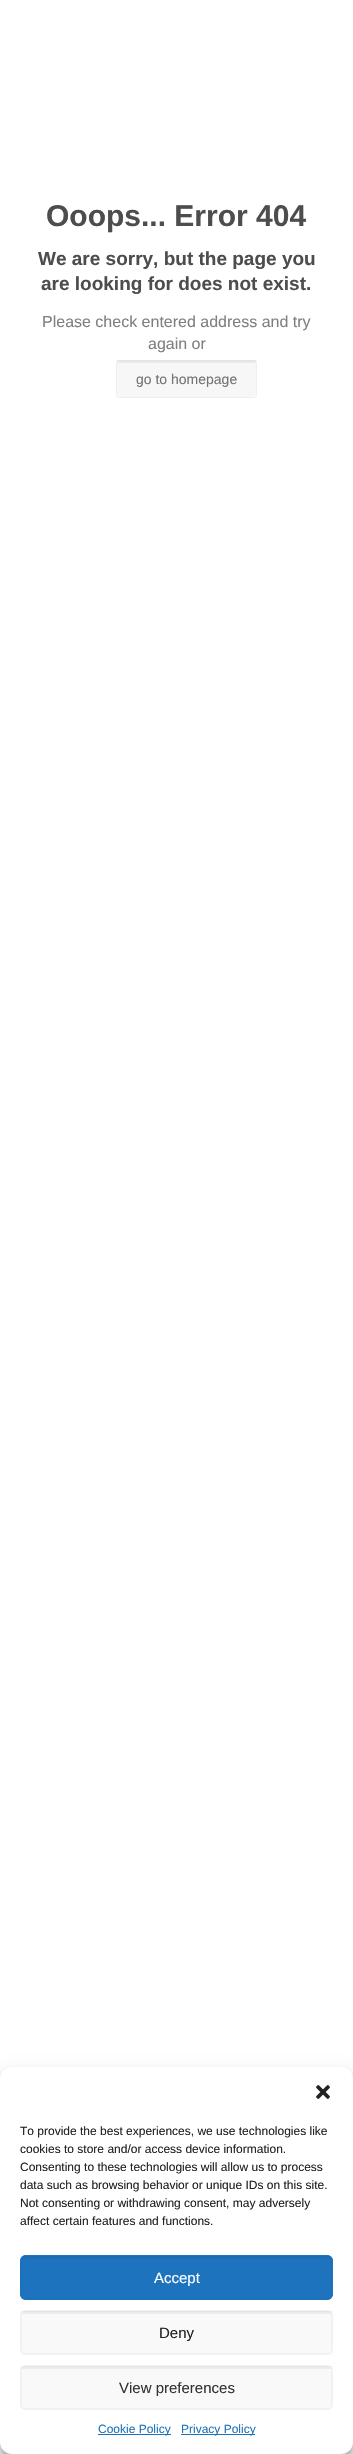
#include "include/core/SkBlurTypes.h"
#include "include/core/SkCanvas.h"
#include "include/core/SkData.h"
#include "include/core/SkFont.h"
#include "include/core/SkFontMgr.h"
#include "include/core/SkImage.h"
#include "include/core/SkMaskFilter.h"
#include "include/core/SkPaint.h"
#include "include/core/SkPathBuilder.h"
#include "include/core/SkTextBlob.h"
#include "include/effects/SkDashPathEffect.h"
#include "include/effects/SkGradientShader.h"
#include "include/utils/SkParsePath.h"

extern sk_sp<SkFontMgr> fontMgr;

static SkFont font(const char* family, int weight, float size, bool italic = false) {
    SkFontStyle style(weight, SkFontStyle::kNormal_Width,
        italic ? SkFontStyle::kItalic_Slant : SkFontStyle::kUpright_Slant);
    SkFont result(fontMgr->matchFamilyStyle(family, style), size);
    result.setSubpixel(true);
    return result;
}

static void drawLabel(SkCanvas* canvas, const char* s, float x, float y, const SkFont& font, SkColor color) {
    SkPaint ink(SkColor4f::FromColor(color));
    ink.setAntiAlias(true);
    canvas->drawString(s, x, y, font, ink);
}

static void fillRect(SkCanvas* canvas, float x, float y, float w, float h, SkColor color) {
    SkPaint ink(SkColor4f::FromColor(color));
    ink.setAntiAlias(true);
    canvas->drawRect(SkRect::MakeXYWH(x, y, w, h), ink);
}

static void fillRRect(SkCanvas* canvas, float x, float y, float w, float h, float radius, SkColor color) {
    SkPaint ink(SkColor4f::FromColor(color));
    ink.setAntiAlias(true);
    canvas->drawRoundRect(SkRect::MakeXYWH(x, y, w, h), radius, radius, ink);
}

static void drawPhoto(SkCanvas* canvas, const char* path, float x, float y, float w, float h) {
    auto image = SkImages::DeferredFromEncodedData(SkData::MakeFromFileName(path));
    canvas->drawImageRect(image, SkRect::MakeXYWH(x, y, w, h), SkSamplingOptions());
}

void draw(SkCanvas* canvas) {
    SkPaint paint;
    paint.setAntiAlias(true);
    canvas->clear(0xFFFFFFFF);
    SkFont font1 = font("Liberation Sans", 700, 30);
    drawLabel(canvas, "Ooops... Error 404", 46, 226, font1, 0xFF4D4D4D);
    SkFont font2 = font("Liberation Sans", 700, 19);
    drawLabel(canvas, "We are sorry, but the page you", 38, 265, font2, 0xFF4D4D4D);
    drawLabel(canvas, "are looking for does not exist.", 41, 290, font2, 0xFF4D4D4D);
    SkFont font3 = font("Liberation Sans", 400, 16);
    drawLabel(canvas, "Please check entered address and try", 42, 327, font3, 0xFF808080);
    drawLabel(canvas, "again or", 148, 349, font3, 0xFF808080);
    fillRRect(canvas, 116, 360, 141, 38, 5, 0xFFF7F7F7);
    fillRect(canvas, 117, 360, 139, 3, 0x0D000000);
    paint.setStroke(true);
    paint.setStrokeWidth(1);
    paint.setColor(0x08000000);
    canvas->drawRect(SkRect::MakeXYWH(116.5f, 360.5f, 140, 37), paint);
    SkFont font4 = font("Liberation Sans", 400, 14);
    drawLabel(canvas, "go to homepage", 136, 384, font4, 0xFF747474);
    paint.setStroke(false);
    paint.setColor(0x3B000000);
    paint.setMaskFilter(SkMaskFilter::MakeBlur(kNormal_SkBlurStyle, 3));
    canvas->drawRoundRect(SkRect::MakeXYWH(0, 2073, 353, 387), 12, 12, paint);
    paint.setMaskFilter(nullptr);
    paint.setColor(0x30000000);
    paint.setMaskFilter(SkMaskFilter::MakeBlur(kNormal_SkBlurStyle, 10));
    canvas->drawRoundRect(SkRect::MakeXYWH(0, 2077, 353, 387), 12, 12, paint);
    paint.setMaskFilter(nullptr);
    fillRRect(canvas, 0, 2067, 353, 387, 12, 0xFFFFFFFF);
    drawPhoto(canvas, "assets/img1.png", 316, 2085, 14, 14);
    SkFont font5 = font("Liberation Sans", 400, 12);
    drawLabel(canvas, "To provide the best experiences, we use technologies like", 20, 2135, font5, 0xFF222222);
    drawLabel(canvas, "cookies to store and/or access device information.", 20, 2153, font5, 0xFF222222);
    drawLabel(canvas, "Consenting to these technologies will allow us to process", 20, 2171, font5, 0xFF222222);
    drawLabel(canvas, "data such as browsing behavior or unique IDs on this site.", 20, 2189, font5, 0xFF222222);
    drawLabel(canvas, "Not consenting or withdrawing consent, may adversely", 20, 2207, font5, 0xFF222222);
    drawLabel(canvas, "affect certain features and functions.", 20, 2225, font5, 0xFF222222);
    fillRRect(canvas, 20, 2255, 313, 45, 6, 0xFF1E73BE);
    fillRect(canvas, 21, 2256, 311, 3, 0x0D000000);
    paint.setStroke(true);
    paint.setColor(0x08000000);
    canvas->drawRect(SkRect::MakeXYWH(21.5f, 2256.5f, 310, 42), paint);
    paint.setColor(0xFF1E73BE);
    canvas->drawRoundRect(SkRect::MakeXYWH(20.5f, 2255.5f, 312, 44), 5.5f, 5.5f, paint);
    SkFont font6 = font("Liberation Sans", 400, 15);
    drawLabel(canvas, "Accept", 154, 2283, font6, 0xFFFFFFFF);
    fillRRect(canvas, 20, 2310, 313, 45, 6, 0xFFF9F9F9);
    fillRect(canvas, 21, 2311, 311, 3, 0x0D000000);
    paint.setColor(0x08000000);
    canvas->drawRect(SkRect::MakeXYWH(21.5f, 2311.5f, 310, 42), paint);
    paint.setColor(0xFFF2F2F2);
    canvas->drawRoundRect(SkRect::MakeXYWH(20.5f, 2310.5f, 312, 44), 5.5f, 5.5f, paint);
    drawLabel(canvas, "Deny", 159, 2338, font6, 0xFF222222);
    fillRRect(canvas, 20, 2365, 313, 45, 6, 0xFFF9F9F9);
    fillRect(canvas, 21, 2366, 311, 3, 0x0D000000);
    paint.setColor(0x08000000);
    canvas->drawRect(SkRect::MakeXYWH(21.5f, 2366.5f, 310, 42), paint);
    paint.setColor(0xFFF2F2F2);
    canvas->drawRoundRect(SkRect::MakeXYWH(20.5f, 2365.5f, 312, 44), 5.5f, 5.5f, paint);
    drawLabel(canvas, "View preferences", 119, 2393, font6, 0xFF333333);
    fillRect(canvas, 98, 2434, 73, 1, 0xFF1E73BE);
    drawLabel(canvas, "Cookie Policy", 98, 2433, font5, 0xFF1E73BE);
    fillRect(canvas, 181, 2434, 74, 1, 0xFF1E73BE);
    drawLabel(canvas, "Privacy Policy", 181, 2433, font5, 0xFF1E73BE);
}
